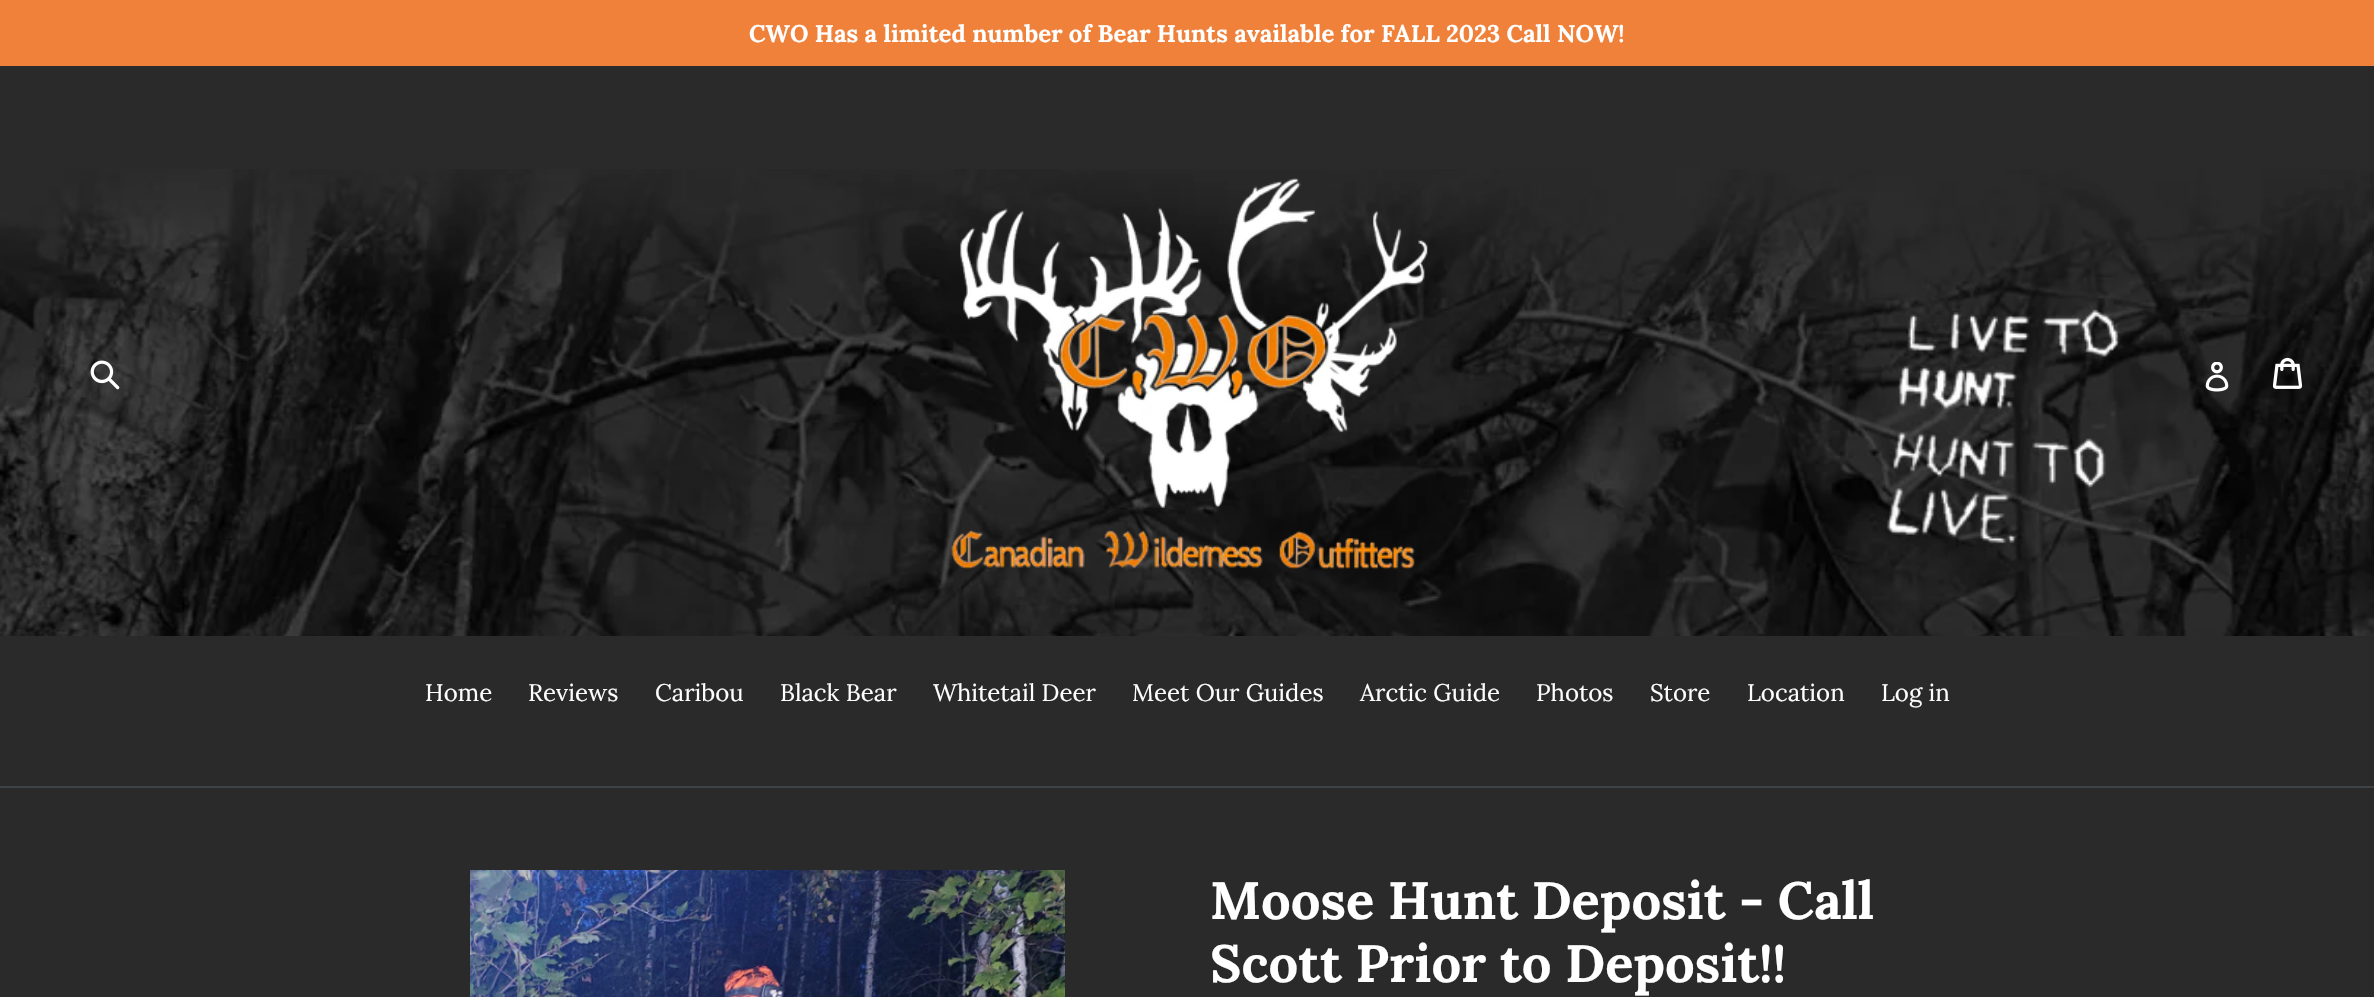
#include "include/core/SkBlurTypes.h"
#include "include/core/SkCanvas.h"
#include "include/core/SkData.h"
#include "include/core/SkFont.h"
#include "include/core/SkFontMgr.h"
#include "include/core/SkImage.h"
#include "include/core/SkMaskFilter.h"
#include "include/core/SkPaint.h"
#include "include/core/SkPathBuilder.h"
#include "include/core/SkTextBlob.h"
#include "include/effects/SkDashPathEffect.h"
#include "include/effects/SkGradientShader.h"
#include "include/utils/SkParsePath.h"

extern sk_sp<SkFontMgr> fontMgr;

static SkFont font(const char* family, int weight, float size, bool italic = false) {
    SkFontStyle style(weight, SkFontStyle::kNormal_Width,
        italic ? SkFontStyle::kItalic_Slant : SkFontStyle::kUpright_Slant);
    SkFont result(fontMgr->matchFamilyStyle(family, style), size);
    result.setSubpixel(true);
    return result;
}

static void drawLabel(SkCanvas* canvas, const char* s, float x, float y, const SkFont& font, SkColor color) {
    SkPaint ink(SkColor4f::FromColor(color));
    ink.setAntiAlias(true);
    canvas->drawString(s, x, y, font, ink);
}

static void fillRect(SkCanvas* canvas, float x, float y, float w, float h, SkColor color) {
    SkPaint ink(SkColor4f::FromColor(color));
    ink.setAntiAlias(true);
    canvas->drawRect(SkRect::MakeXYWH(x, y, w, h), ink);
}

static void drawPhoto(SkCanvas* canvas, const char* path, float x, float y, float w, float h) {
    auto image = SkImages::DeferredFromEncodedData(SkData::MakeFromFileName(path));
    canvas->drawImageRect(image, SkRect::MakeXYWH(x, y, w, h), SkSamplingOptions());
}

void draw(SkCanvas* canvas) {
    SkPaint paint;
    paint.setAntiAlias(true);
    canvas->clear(0xFF2A2A2A);
    fillRect(canvas, 0, 0, 2374, 66, 0xFFF0813A);
    SkFont font1 = font("Lora", 700, 24);
    drawLabel(canvas, "CWO Has a limited number of Bear Hunts available for FALL 2023 Call NOW!", 749, 42, font1, 0xFFFFFFFF);
    drawPhoto(canvas, "assets/img1.png", 0, 169, 2374, 467);
    drawPhoto(canvas, "assets/img2.png", 90, 360, 30, 30);
    drawPhoto(canvas, "assets/img3.png", 951, 178, 477, 392);
    drawPhoto(canvas, "assets/img4.png", 2205, 362, 24, 30);
    drawPhoto(canvas, "assets/img5.png", 2273, 357, 30, 32);
    fillRect(canvas, 0, 786, 2374, 2, 0xFF3D4246);
    SkFont font2 = font("Lora", 400, 24);
    drawLabel(canvas, "Home", 425, 701, font2, 0xFFFFFFFF);
    drawLabel(canvas, "Reviews", 528, 701, font2, 0xFFFFFFFF);
    drawLabel(canvas, "Caribou", 655, 701, font2, 0xFFFFFFFF);
    drawLabel(canvas, "Black Bear", 780, 701, font2, 0xFFFFFFFF);
    drawLabel(canvas, "Whitetail Deer", 933, 701, font2, 0xFFFFFFFF);
    drawLabel(canvas, "Meet Our Guides", 1132, 701, font2, 0xFFFFFFFF);
    drawLabel(canvas, "Arctic Guide", 1360, 701, font2, 0xFFFFFFFF);
    drawLabel(canvas, "Photos", 1536, 701, font2, 0xFFFFFFFF);
    drawLabel(canvas, "Store", 1650, 701, font2, 0xFFFFFFFF);
    drawLabel(canvas, "Location", 1747, 701, font2, 0xFFFFFFFF);
    drawLabel(canvas, "Log in", 1881, 701, font2, 0xFFFFFFFF);
    drawPhoto(canvas, "assets/img6.png", 470, 870, 595, 127);
    SkFont font3 = font("Lora", 700, 52.5f);
    drawLabel(canvas, "Moose Hunt Deposit - Call", 1210, 919, font3, 0xFFFFFFFF);
    drawLabel(canvas, "Scott Prior to Deposit!!", 1210, 982, font3, 0xFFFFFFFF);
}
